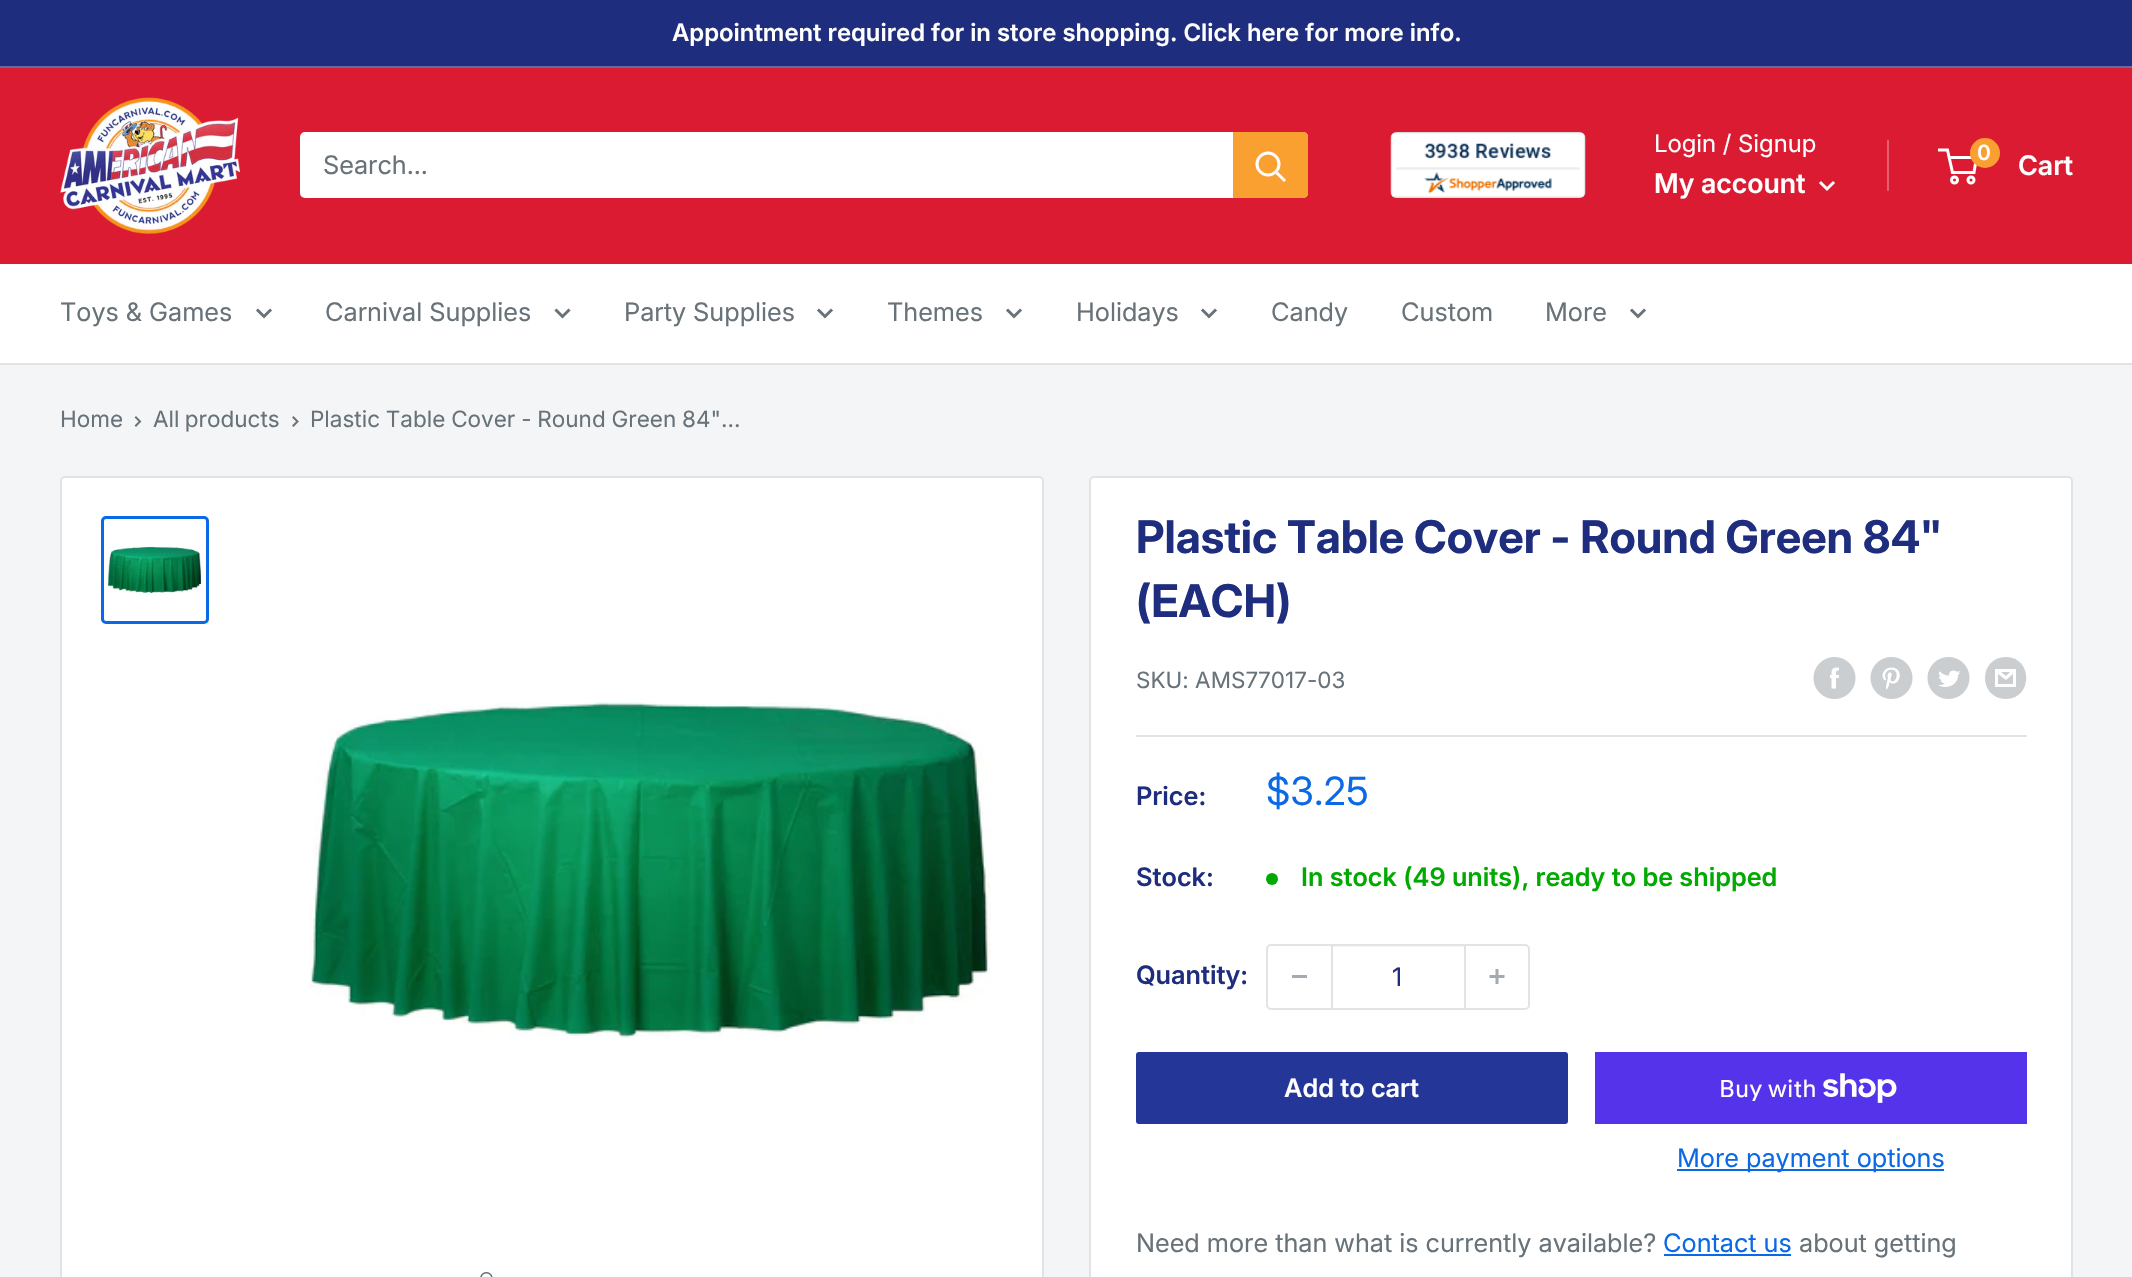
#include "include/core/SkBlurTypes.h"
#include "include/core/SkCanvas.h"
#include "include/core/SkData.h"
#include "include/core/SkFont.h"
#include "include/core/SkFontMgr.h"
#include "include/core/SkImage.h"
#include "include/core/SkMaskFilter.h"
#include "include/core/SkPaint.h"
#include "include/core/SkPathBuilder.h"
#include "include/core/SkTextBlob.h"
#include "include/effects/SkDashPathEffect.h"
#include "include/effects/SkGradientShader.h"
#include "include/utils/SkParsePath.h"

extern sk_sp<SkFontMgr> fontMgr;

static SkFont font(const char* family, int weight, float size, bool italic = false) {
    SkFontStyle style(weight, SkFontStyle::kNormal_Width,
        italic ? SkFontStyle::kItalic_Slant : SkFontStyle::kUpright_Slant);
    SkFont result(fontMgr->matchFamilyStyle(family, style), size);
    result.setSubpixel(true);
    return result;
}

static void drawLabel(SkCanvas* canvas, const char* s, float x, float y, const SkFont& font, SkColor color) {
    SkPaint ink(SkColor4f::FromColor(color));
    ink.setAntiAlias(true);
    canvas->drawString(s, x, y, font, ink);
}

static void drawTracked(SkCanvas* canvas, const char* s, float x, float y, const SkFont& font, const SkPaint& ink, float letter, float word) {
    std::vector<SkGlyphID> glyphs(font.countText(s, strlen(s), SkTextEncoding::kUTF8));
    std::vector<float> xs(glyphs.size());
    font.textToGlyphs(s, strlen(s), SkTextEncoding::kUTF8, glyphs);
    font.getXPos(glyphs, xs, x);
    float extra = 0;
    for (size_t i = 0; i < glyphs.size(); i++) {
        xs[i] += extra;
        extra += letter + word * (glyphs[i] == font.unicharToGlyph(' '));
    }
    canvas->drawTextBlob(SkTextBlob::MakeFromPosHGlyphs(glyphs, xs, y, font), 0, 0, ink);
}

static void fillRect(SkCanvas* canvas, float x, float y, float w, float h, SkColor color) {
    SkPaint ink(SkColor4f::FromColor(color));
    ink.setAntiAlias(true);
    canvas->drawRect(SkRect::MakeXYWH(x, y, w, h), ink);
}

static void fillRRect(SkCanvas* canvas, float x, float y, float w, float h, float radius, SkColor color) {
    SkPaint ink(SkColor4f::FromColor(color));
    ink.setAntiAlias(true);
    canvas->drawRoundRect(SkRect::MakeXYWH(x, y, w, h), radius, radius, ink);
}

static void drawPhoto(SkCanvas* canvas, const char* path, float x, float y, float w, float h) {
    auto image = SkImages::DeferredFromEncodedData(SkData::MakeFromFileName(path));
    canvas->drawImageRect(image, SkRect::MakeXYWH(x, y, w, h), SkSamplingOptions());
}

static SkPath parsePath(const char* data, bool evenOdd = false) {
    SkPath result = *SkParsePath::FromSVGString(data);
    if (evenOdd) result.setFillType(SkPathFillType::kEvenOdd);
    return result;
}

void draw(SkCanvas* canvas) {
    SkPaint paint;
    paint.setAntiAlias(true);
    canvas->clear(0xFFF3F5F6);
    fillRect(canvas, 0, 0, 2132, 66, 0xFF1E2D7D);
    fillRect(canvas, 0, 66, 2132, 2, 0xFF626CA4);
    SkFont font1 = font("Inter", 600, 24);
    drawLabel(canvas, "Appointment required for in store shopping. Click here for more info.", 672, 41, font1, 0xFFFFFFFF);
    fillRect(canvas, 0, 68, 2132, 196, 0xFFDB1B31);
    drawPhoto(canvas, "assets/img1.png", 60, 97, 180, 137);
    fillRRect(canvas, 300, 132, 1008, 66, 5, 0xFFFFFFFF);
    SkFont font2 = font("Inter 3", 400, 25.5f);
    drawLabel(canvas, "Search...", 323, 174, font2, 0xFF677279);
    paint.setColor(0xFFFAA031);
    canvas->drawPath(parsePath("M1233 132H1303C1306 132 1308 134 1308 137V193C1308 196 1306 198 1303 198H1233Z"), paint);
    paint.setStroke(true);
    paint.setStrokeWidth(3);
    paint.setStrokeCap(SkPaint::kSquare_Cap);
    paint.setColor(0xFFFFFFFF);
    canvas->drawPath(parsePath("M1284 180L1276.5 172.5"), paint);
    paint.setStrokeCap(SkPaint::kButt_Cap);
    canvas->drawCircle(1268, 164, 11, paint);
    drawPhoto(canvas, "assets/img2.png", 1390, 132, 196, 66);
    SkFont font3 = font("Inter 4", 400, 24);
    drawLabel(canvas, "Login / Signup", 1654, 152, font3, 0xFFFFFFFF);
    fillRect(canvas, 1887, 140, 2, 51, 0xFFE65F6F);
    SkFont font4 = font("Inter 3", 600, 27);
    drawLabel(canvas, "My account", 1654, 193, font4, 0xFFFFFFFF);
    paint.setStrokeCap(SkPaint::kSquare_Cap);
    canvas->drawPath(parsePath("M1833 183L1827 189L1821 183"), paint);
    paint.setStrokeCap(SkPaint::kButt_Cap);
    canvas->drawCircle(1954.5f, 180, 3, paint);
    canvas->drawCircle(1971, 180, 3, paint);
    canvas->drawPath(parsePath("M1949 157.5H1976.5L1974 172.5H1952.5L1947.5 150H1938"), paint);
    paint.setStroke(false);
    paint.setColor(0xFFFAA031);
    canvas->drawCircle(1985, 153, 15, paint);
    SkFont font5 = font("Inter 4", 600, 21);
    drawLabel(canvas, "0", 1977, 160, font5, 0xFFFFFFFF);
    drawLabel(canvas, "Cart", 2018, 175, font4, 0xFFFFFFFF);
    fillRect(canvas, 0, 264, 2132, 99, 0xFFFFFFFF);
    fillRect(canvas, 0, 363, 2132, 2, 0xFFE1E3E4);
    drawLabel(canvas, "Toys & Games", 60, 321, font2, 0xFF677279);
    paint.setStroke(true);
    paint.setStrokeCap(SkPaint::kSquare_Cap);
    paint.setColor(0xFF677279);
    canvas->drawPath(parsePath("M270 310.5L264 316.5L258 310.5"), paint);
    drawLabel(canvas, "Carnival Supplies", 325, 321, font2, 0xFF677279);
    canvas->drawPath(parsePath("M568.5 310.5L562.5 316.5L556.5 310.5"), paint);
    drawLabel(canvas, "Party Supplies", 624, 321, font2, 0xFF677279);
    canvas->drawPath(parsePath("M831 310.5L825 316.5L819 310.5"), paint);
    drawLabel(canvas, "Themes", 887, 321, font2, 0xFF677279);
    canvas->drawPath(parsePath("M1020 310.5L1014 316.5L1008 310.5"), paint);
    drawLabel(canvas, "Holidays", 1076, 321, font2, 0xFF677279);
    canvas->drawPath(parsePath("M1215 310.5L1209 316.5L1203 310.5"), paint);
    drawLabel(canvas, "Candy", 1271, 321, font2, 0xFF677279);
    drawLabel(canvas, "Custom", 1401, 321, font2, 0xFF677279);
    drawLabel(canvas, "More", 1545, 321, font2, 0xFF677279);
    canvas->drawPath(parsePath("M1644 310.5L1638 316.5L1632 310.5"), paint);
    SkFont font6 = font("Inter", 400, 22.5f);
    drawLabel(canvas, "Home", 60, 427, font6, 0xFF677279);
    paint.setStrokeWidth(2);
    canvas->drawPath(parsePath("M136 417.5L140 421.5L136 425.5"), paint);
    paint.setStroke(false);
    drawTracked(canvas, "All products", 153, 427, font6, paint, 0, -1);
    paint.setStroke(true);
    canvas->drawPath(parsePath("M293.5 417.5L297.5 421.5L293.5 425.5"), paint);
    paint.setStroke(false);
    drawTracked(canvas, "Plastic Table Cover - Round Green 84\"...", 310, 427, font6, paint, 0, -0.5f);
    paint.setColor(0xFFFFFFFF);
    canvas->drawRoundRect(SkRect::MakeXYWH(61, 477, 982, 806), 4, 4, paint);
    paint.setStroke(true);
    paint.setStrokeCap(SkPaint::kButt_Cap);
    paint.setColor(0xFFE1E3E4);
    canvas->drawRoundRect(SkRect::MakeXYWH(61, 477, 982, 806), 4, 4, paint);
    paint.setStrokeWidth(3);
    paint.setColor(0xFF0A69E6);
    canvas->drawRoundRect(SkRect::MakeXYWH(102.5f, 517.5f, 105, 105), 3.5f, 3.5f, paint);
    drawPhoto(canvas, "assets/img3.png", 106, 546, 96, 48);
    drawPhoto(canvas, "assets/img4.png", 309, 702, 682, 337);
    drawPhoto(canvas, "assets/img5.png", 480, 1272, 13, 5);
    paint.setStroke(false);
    paint.setColor(0xFFFFFFFF);
    canvas->drawRoundRect(SkRect::MakeXYWH(1090, 477, 982, 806), 4, 4, paint);
    paint.setStroke(true);
    paint.setStrokeWidth(2);
    paint.setColor(0xFFE1E3E4);
    canvas->drawRoundRect(SkRect::MakeXYWH(1090, 477, 982, 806), 4, 4, paint);
    SkFont font7 = font("Inter", 700, 45);
    drawLabel(canvas, "Plastic Table Cover - Round Green 84\"", 1136, 553, font7, 0xFF1E2D7D);
    drawLabel(canvas, "(EACH)", 1136, 617, font7, 0xFF1E2D7D);
    drawLabel(canvas, "SKU: AMS77017-03", 1136, 688, font6, 0xFF677279);
    drawPhoto(canvas, "assets/img6.png", 1813, 657, 43, 42);
    drawPhoto(canvas, "assets/img7.png", 1870, 657, 43, 42);
    drawPhoto(canvas, "assets/img8.png", 1927, 657, 43, 42);
    paint.setStroke(false);
    paint.setColor(0xFFCACED0);
    canvas->drawPath(parsePath("M2006 699C1978 699 1978 657 2006 657C2033 657 2033 699 2006 699ZM2001 672H2010L2006 676ZM2013 674V684H1998V674L2006 680ZM2016 669H1995V687H2016Z"), paint);
    fillRect(canvas, 1136, 735, 891, 2, 0xFFE1E3E4);
    SkFont font8 = font("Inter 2", 600, 25.5f);
    drawLabel(canvas, "Price:", 1136, 805, font8, 0xFF1E2D7D);
    SkFont font9 = font("Inter 2", 400, 39);
    drawLabel(canvas, "$3.25", 1266, 805, font9, 0xFF0A69E6);
    drawLabel(canvas, "Stock:", 1136, 886, font8, 0xFF1E2D7D);
    paint.setColor(0xFF00AA00);
    canvas->drawCircle(1272, 879, 6, paint);
    drawLabel(canvas, "In stock (49 units), ready to be shipped", 1301, 886, font8, 0xFF00AA00);
    drawLabel(canvas, "Quantity:", 1136, 984, font8, 0xFF1E2D7D);
    paint.setStroke(true);
    paint.setColor(0xFFE1E3E4);
    canvas->drawRoundRect(SkRect::MakeXYWH(1267, 945, 262, 64), 4, 4, paint);
    fillRect(canvas, 1292, 975, 15, 3, 0xFFA4AAAF);
    fillRect(canvas, 1332, 946, 132, 1, 0x66E1E3E4);
    fillRect(canvas, 1464, 945, 2, 63, 0xFFE1E3E4);
    fillRect(canvas, 1331, 945, 2, 63, 0xFFE1E3E4);
    drawLabel(canvas, "1", 1392, 986, font2, 0xFF1E2D7D);
    drawPhoto(canvas, "assets/img9.png", 1489, 969, 16, 15);
    fillRRect(canvas, 1136, 1052, 432, 72, 3, 0xFF243799);
    drawLabel(canvas, "Add to cart", 1284, 1097, font8, 0xFFFFFFFF);
    fillRect(canvas, 1595, 1052, 432, 72, 0xFF5433EB);
    SkFont font10 = font("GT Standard", 400, 24);
    drawLabel(canvas, "Buy with", 1719, 1097, font10, 0xFFFFFFFF);
    drawPhoto(canvas, "assets/img10.png", 1823, 1073, 74, 30);
    fillRect(canvas, 1677, 1169, 267, 2, 0xFF0A69E6);
    drawLabel(canvas, "More payment options", 1677, 1167, font2, 0xFF0A69E6);
    drawLabel(canvas, "Need more than what is currently available?", 1136, 1252, font2, 0xFF677279);
    drawLabel(canvas, "Contact us", 1663, 1252, font2, 0xFF0A69E6);
    fillRect(canvas, 1664, 1254, 127, 2, 0xFF0A69E6);
    drawLabel(canvas, "about getting", 1799, 1252, font2, 0xFF677279);
}
